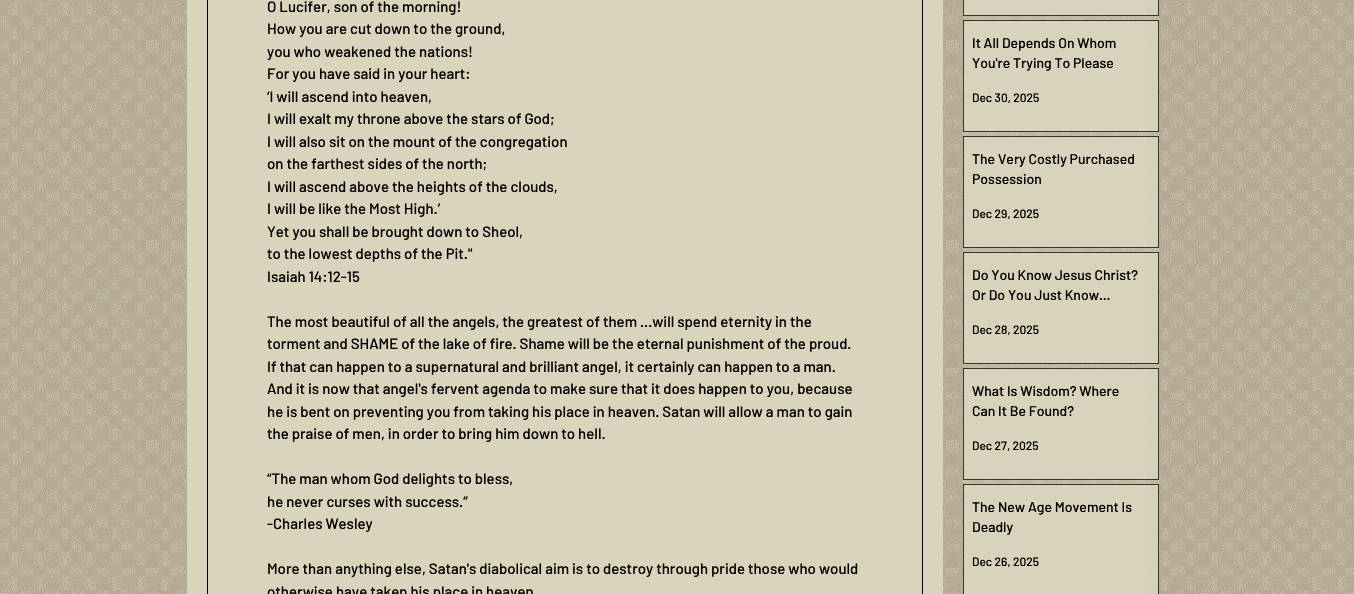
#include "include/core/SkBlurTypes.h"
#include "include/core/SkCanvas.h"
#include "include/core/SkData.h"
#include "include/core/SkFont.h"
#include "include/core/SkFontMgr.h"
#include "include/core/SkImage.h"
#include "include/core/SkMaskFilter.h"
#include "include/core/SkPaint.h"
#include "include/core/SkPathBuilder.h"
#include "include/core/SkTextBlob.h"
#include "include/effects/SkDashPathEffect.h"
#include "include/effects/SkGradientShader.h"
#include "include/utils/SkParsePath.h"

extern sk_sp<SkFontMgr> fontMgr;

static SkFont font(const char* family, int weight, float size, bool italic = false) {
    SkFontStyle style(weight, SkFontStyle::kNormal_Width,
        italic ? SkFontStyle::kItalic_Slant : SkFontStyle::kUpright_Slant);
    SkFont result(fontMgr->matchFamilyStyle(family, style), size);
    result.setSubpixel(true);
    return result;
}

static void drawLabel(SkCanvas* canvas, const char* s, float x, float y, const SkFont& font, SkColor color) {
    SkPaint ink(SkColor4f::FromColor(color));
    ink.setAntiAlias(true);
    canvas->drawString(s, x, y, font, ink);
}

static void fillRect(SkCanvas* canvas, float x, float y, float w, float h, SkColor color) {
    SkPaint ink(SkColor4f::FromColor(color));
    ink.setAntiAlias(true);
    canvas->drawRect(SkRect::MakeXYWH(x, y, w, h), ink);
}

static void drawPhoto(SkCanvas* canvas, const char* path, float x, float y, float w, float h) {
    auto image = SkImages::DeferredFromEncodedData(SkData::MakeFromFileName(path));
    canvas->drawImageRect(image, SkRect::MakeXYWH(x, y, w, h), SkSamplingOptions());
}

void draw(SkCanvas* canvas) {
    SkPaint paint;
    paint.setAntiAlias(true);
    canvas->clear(0xFFFFFFFF);
    drawPhoto(canvas, "assets/img1.png", 0, 0, 1354, 594);
    fillRect(canvas, 187, 0, 756, 594, 0xFFDAD4BC);
    paint.setStroke(true);
    paint.setStrokeWidth(1);
    paint.setColor(0xFF000000);
    canvas->drawRect(SkRect::MakeXYWH(207.5f, -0.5f, 715, 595), paint);
    SkFont font1 = font("Barlow", 500, 15);
    drawLabel(canvas, "O Lucifer, son of the morning!", 267, 12, font1, 0xFF000000);
    drawLabel(canvas, "How you are cut down to the ground,", 267, 34, font1, 0xFF000000);
    drawLabel(canvas, "you who weakened the nations!", 267, 57, font1, 0xFF000000);
    drawLabel(canvas, "For you have said in your heart:", 267, 79, font1, 0xFF000000);
    drawLabel(canvas, "‘I will ascend into heaven,", 267, 102, font1, 0xFF000000);
    drawLabel(canvas, "I will exalt my throne above the stars of God;", 267, 124, font1, 0xFF000000);
    drawLabel(canvas, "I will also sit on the mount of the congregation", 267, 147, font1, 0xFF000000);
    drawLabel(canvas, "on the farthest sides of the north;", 267, 169, font1, 0xFF000000);
    drawLabel(canvas, "I will ascend above the heights of the clouds,", 267, 192, font1, 0xFF000000);
    drawLabel(canvas, "I will be like the Most High.’", 267, 214, font1, 0xFF000000);
    drawLabel(canvas, "Yet you shall be brought down to Sheol,", 267, 237, font1, 0xFF000000);
    drawLabel(canvas, "to the lowest depths of the Pit.\"", 267, 259, font1, 0xFF000000);
    drawLabel(canvas, "Isaiah 14:12-15", 267, 282, font1, 0xFF000000);
    drawLabel(canvas, "The most beautiful of all the angels, the greatest of them ...will spend eternity in the", 267, 327, font1, 0xFF000000);
    drawLabel(canvas, "torment and SHAME of the lake of fire. Shame will be the eternal punishment of the proud.", 267, 349, font1, 0xFF000000);
    drawLabel(canvas, "If that can happen to a supernatural and brilliant angel, it certainly can happen to a man.", 267, 372, font1, 0xFF000000);
    drawLabel(canvas, "And it is now that angel's fervent agenda to make sure that it does happen to you, because", 267, 394, font1, 0xFF000000);
    drawLabel(canvas, "he is bent on preventing you from taking his place in heaven. Satan will allow a man to gain", 267, 417, font1, 0xFF000000);
    drawLabel(canvas, "the praise of men, in order to bring him down to hell.", 267, 439, font1, 0xFF000000);
    drawLabel(canvas, "“The man whom God delights to bless,", 267, 484, font1, 0xFF000000);
    drawLabel(canvas, "he never curses with success.”", 267, 507, font1, 0xFF000000);
    drawLabel(canvas, "-Charles Wesley", 267, 529, font1, 0xFF000000);
    drawLabel(canvas, "More than anything else, Satan's diabolical aim is to destroy through pride those who would", 267, 574, font1, 0xFF000000);
    drawLabel(canvas, "otherwise have taken his place in heaven", 267, 597, font1, 0xFF000000);
    fillRect(canvas, 963, 0, 196, 594, 0x4DDAD4BC);
    fillRect(canvas, 963, 0, 196, 16, 0x9CDAD4BC);
    paint.setColor(0xBF000000);
    canvas->drawRect(SkRect::MakeXYWH(963.5f, -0.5f, 195, 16), paint);
    fillRect(canvas, 964, 0, 194, 15, 0x9CDAD4BC);
    fillRect(canvas, 964, 0, 182, 15, 0x9CDAD4BC);
    fillRect(canvas, 963, 20, 196, 112, 0x9CDAD4BC);
    canvas->drawRect(SkRect::MakeXYWH(963.5f, 20.5f, 195, 111), paint);
    fillRect(canvas, 964, 21, 194, 110, 0x9CDAD4BC);
    fillRect(canvas, 964, 21, 182, 110, 0x9CDAD4BC);
    SkFont font2 = font("Barlow", 500, 14);
    drawLabel(canvas, "It All Depends On Whom", 972, 48, font2, 0xFF000000);
    drawLabel(canvas, "You're Trying To Please", 972, 68, font2, 0xFF000000);
    SkFont font3 = font("Barlow", 500, 12);
    drawLabel(canvas, "Dec 30, 2025", 972, 102, font3, 0xFF000000);
    fillRect(canvas, 963, 136, 196, 112, 0x9CDAD4BC);
    canvas->drawRect(SkRect::MakeXYWH(963.5f, 136.5f, 195, 111), paint);
    fillRect(canvas, 964, 137, 194, 110, 0x9CDAD4BC);
    fillRect(canvas, 964, 137, 182, 110, 0x9CDAD4BC);
    drawLabel(canvas, "The Very Costly Purchased", 972, 164, font2, 0xFF000000);
    drawLabel(canvas, "Possession", 972, 184, font2, 0xFF000000);
    drawLabel(canvas, "Dec 29, 2025", 972, 218, font3, 0xFF000000);
    fillRect(canvas, 963, 252, 196, 112, 0x9CDAD4BC);
    canvas->drawRect(SkRect::MakeXYWH(963.5f, 252.5f, 195, 111), paint);
    fillRect(canvas, 964, 253, 194, 110, 0x9CDAD4BC);
    fillRect(canvas, 964, 253, 182, 110, 0x9CDAD4BC);
    drawLabel(canvas, "Do You Know Jesus Christ?", 972, 280, font2, 0xFF000000);
    drawLabel(canvas, "Or Do You Just Know…", 972, 300, font2, 0xFF000000);
    drawLabel(canvas, "Dec 28, 2025", 972, 334, font3, 0xFF000000);
    fillRect(canvas, 963, 368, 196, 112, 0x9CDAD4BC);
    canvas->drawRect(SkRect::MakeXYWH(963.5f, 368.5f, 195, 111), paint);
    fillRect(canvas, 964, 369, 194, 110, 0x9CDAD4BC);
    fillRect(canvas, 964, 369, 182, 110, 0x9CDAD4BC);
    drawLabel(canvas, "What Is Wisdom? Where", 972, 396, font2, 0xFF000000);
    drawLabel(canvas, "Can It Be Found?", 972, 416, font2, 0xFF000000);
    drawLabel(canvas, "Dec 27, 2025", 972, 450, font3, 0xFF000000);
    fillRect(canvas, 963, 484, 196, 110, 0x9CDAD4BC);
    canvas->drawRect(SkRect::MakeXYWH(963.5f, 484.5f, 195, 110), paint);
    fillRect(canvas, 964, 485, 194, 109, 0x9CDAD4BC);
    fillRect(canvas, 964, 485, 182, 109, 0x9CDAD4BC);
    drawLabel(canvas, "The New Age Movement Is", 972, 512, font2, 0xFF000000);
    drawLabel(canvas, "Deadly", 972, 532, font2, 0xFF000000);
    drawLabel(canvas, "Dec 26, 2025", 972, 566, font3, 0xFF000000);
}
